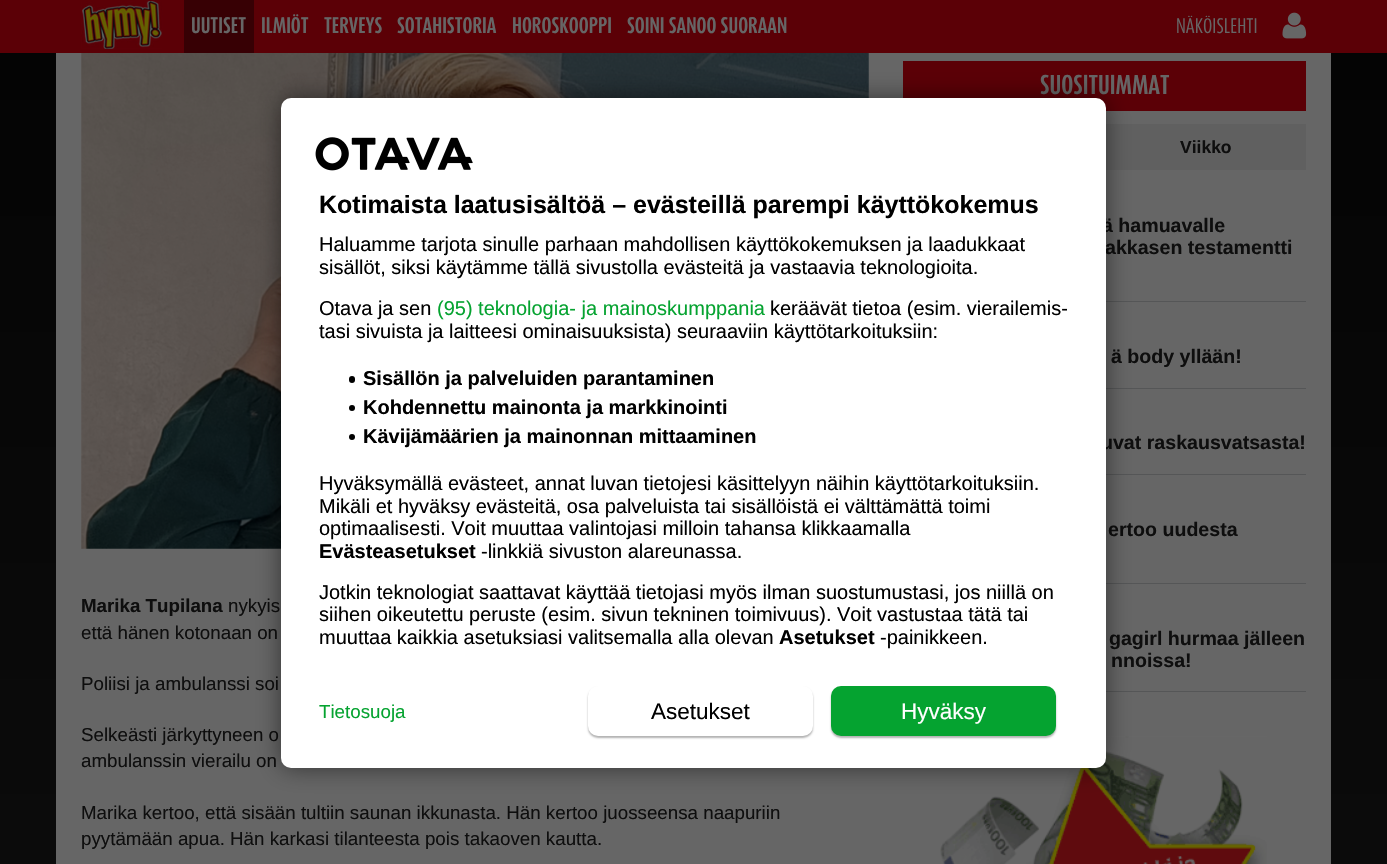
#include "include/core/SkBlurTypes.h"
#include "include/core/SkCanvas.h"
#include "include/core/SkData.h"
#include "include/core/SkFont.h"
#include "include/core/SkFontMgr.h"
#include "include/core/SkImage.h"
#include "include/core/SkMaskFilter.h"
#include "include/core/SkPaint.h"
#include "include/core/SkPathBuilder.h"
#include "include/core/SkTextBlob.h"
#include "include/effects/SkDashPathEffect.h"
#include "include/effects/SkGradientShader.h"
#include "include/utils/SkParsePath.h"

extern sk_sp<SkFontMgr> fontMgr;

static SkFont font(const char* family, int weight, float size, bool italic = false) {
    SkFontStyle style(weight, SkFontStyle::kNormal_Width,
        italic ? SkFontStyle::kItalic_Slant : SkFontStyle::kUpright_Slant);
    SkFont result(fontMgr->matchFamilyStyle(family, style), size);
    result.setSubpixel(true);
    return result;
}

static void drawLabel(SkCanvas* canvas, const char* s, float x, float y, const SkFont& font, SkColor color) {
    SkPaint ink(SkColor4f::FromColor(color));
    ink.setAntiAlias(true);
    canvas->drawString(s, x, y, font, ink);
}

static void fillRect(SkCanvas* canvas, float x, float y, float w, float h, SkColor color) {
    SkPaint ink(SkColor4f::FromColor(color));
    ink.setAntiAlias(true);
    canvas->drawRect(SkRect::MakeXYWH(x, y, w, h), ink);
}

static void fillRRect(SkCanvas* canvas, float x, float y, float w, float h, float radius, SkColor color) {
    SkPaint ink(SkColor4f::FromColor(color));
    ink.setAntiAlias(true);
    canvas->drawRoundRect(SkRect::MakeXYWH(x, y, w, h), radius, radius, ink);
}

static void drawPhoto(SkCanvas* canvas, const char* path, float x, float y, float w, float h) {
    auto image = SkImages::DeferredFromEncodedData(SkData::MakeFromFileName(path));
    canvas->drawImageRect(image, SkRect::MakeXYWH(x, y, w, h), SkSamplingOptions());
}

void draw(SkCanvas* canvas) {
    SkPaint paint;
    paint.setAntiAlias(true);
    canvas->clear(0xFFFFFFFF);
    {
        const SkColor colors[] = {0xFF000000, 0xFF0C0C0C};
        const float stops[] = {0, 1};
        const SkPoint ends[] = {{694, -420}, {694, 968}};
        paint.setShader(SkGradientShader::MakeLinear(ends, colors, stops, 2, SkTileMode::kClamp));
        paint.setAlpha(255);
    }
    canvas->drawRect(SkRect::MakeXYWH(0, 53, 1387, 811), paint);
    fillRect(canvas, 0, 0, 1387, 53, 0xFF5B0006);
    drawPhoto(canvas, "assets/img1.png", 81, 1, 82, 48);
    fillRect(canvas, 184, 0, 70, 53, 0xFF370004);
    SkFont font1 = font("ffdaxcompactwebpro", 700, 18.75f);
    drawLabel(canvas, "UUTISET", 191, 33, font1, 0xFF666666);
    drawLabel(canvas, "ILMIÖT", 261, 33, font1, 0xFF666666);
    drawLabel(canvas, "TERVEYS", 324, 33, font1, 0xFF666666);
    drawLabel(canvas, "SOTAHISTORIA", 397, 33, font1, 0xFF666666);
    drawLabel(canvas, "HOROSKOOPPI", 512, 33, font1, 0xFF666666);
    drawLabel(canvas, "SOINI SANOO SUORAAN", 627, 33, font1, 0xFF666666);
    SkFont font2 = font("ffdaxcompactwebpro", 400, 17.5f);
    drawLabel(canvas, "NÄKÖISLEHTI", 1176, 33, font2, 0xFF666666);
    drawPhoto(canvas, "assets/img2.png", 1282, 12, 25, 27);
    fillRect(canvas, 56, 53, 1275, 811, 0xFF666666);
    fillRect(canvas, 903, 61, 403, 50, 0xFF5B0006);
    SkFont font3 = font("ffdaxcompactwebpro", 700, 22.75f);
    drawLabel(canvas, "SUOSITUIMMAT", 1040, 94, font3, 0xFF666666);
    fillRect(canvas, 1106, 124, 200, 46, 0xFF606060);
    SkFont font4 = font("Liberation Sans", 700, 17.5f);
    drawLabel(canvas, "Viikko", 1180, 153, font4, 0xFF0E0E0E);
    fillRect(canvas, 1106, 301, 200, 1, 0xFF555657);
    SkFont font5 = font("Liberation Sans", 700, 19.6f);
    drawLabel(canvas, "ä hamuavalle", 1102, 232, font5, 0xFF0E0E0E);
    drawLabel(canvas, "akkasen testamentti", 1105, 254, font5, 0xFF0E0E0E);
    fillRect(canvas, 1106, 388, 200, 1, 0xFF555657);
    drawLabel(canvas, "ä body yllään!", 1111, 363, font5, 0xFF0E0E0E);
    fillRect(canvas, 1106, 474, 200, 1, 0xFF555657);
    drawLabel(canvas, "uvat raskausvatsasta!", 1101, 449, font5, 0xFF0E0E0E);
    fillRect(canvas, 1106, 583, 200, 1, 0xFF555657);
    drawLabel(canvas, "ertoo uudesta", 1108, 536, font5, 0xFF0E0E0E);
    fillRect(canvas, 1106, 691, 200, 1, 0xFF555657);
    drawLabel(canvas, "gagirl hurmaa jälleen", 1109, 645, font5, 0xFF0E0E0E);
    drawLabel(canvas, "nnoissa!", 1111, 667, font5, 0xFF0E0E0E);
    drawPhoto(canvas, "assets/img3.png", 940, 736, 327, 128);
    drawPhoto(canvas, "assets/img4.png", 81, 53, 788, 496);
    SkFont font6 = font("Liberation Sans", 700, 18.75f);
    drawLabel(canvas, "Marika Tupilana", 81, 612, font6, 0xFF0E0E0E);
    SkFont font7 = font("Liberation Sans", 400, 18.75f);
    drawLabel(canvas, "nykyis", 228, 612, font7, 0xFF0E0E0E);
    drawLabel(canvas, "että hänen kotonaan on", 81, 639, font7, 0xFF0E0E0E);
    drawLabel(canvas, "Poliisi ja ambulanssi soi", 81, 690, font7, 0xFF0E0E0E);
    drawLabel(canvas, "Selkeästi järkyttyneen o", 81, 741, font7, 0xFF0E0E0E);
    drawLabel(canvas, "ambulanssin vierailu on", 81, 767, font7, 0xFF0E0E0E);
    drawLabel(canvas, "Marika kertoo, että sisään tultiin saunan ikkunasta. Hän kertoo juosseensa naapuriin", 81, 819, font7, 0xFF0E0E0E);
    drawLabel(canvas, "pyytämään apua. Hän karkasi tilanteesta pois takaoven kautta.", 81, 845, font7, 0xFF0E0E0E);
    paint.setShader(nullptr);
    paint.setColor(0x80000000);
    paint.setMaskFilter(SkMaskFilter::MakeBlur(kNormal_SkBlurStyle, 12.5f));
    canvas->drawRoundRect(SkRect::MakeXYWH(281, 98, 825, 670), 10, 10, paint);
    paint.setMaskFilter(nullptr);
    fillRRect(canvas, 281, 98, 825, 670, 10, 0xFFFFFFFF);
    drawPhoto(canvas, "assets/img5.png", 315, 137, 158, 34);
    SkFont font8 = font("Liberation Sans", 700, 25);
    drawLabel(canvas, "Kotimaista laatusisältöä – evästeillä parempi käyttökokemus", 319, 213, font8, 0xFF000000);
    SkFont font9 = font("Liberation Sans", 400, 20);
    drawLabel(canvas, "Haluamme tarjota sinulle parhaan mahdollisen käyttökokemuksen ja laadukkaat", 319, 251, font9, 0xFF000000);
    drawLabel(canvas, "sisällöt, siksi käytämme tällä sivustolla evästeitä ja vastaavia teknologioita.", 319, 274, font9, 0xFF000000);
    drawLabel(canvas, "Otava ja sen", 319, 315, font9, 0xFF000000);
    drawLabel(canvas, "(95) teknologia- ja mainoskumppania", 437, 315, font9, 0xFF05A330);
    drawLabel(canvas, "keräävät tietoa (esim. vierailemis-", 770, 315, font9, 0xFF000000);
    drawLabel(canvas, "tasi sivuista ja laitteesi ominaisuuksista) seuraaviin käyttötarkoituksiin:", 319, 338, font9, 0xFF000000);
    fillRRect(canvas, 349, 376, 6, 7, 3, 0xFF000000);
    SkFont font10 = font("Liberation Sans", 700, 20);
    drawLabel(canvas, "Sisällön ja palveluiden parantaminen", 363, 385, font10, 0xFF000000);
    paint.setColor(0xFF000000);
    canvas->drawCircle(352, 408, 3, paint);
    drawLabel(canvas, "Kohdennettu mainonta ja markkinointi", 363, 414, font10, 0xFF000000);
    canvas->drawCircle(352, 437, 3, paint);
    drawLabel(canvas, "Kävijämäärien ja mainonnan mittaaminen", 363, 443, font10, 0xFF000000);
    drawLabel(canvas, "Hyväksymällä evästeet, annat luvan tietojesi käsittelyyn näihin käyttötarkoituksiin.", 319, 490, font9, 0xFF000000);
    drawLabel(canvas, "Mikäli et hyväksy evästeitä, osa palveluista tai sisällöistä ei välttämättä toimi", 319, 513, font9, 0xFF000000);
    drawLabel(canvas, "optimaalisesti. Voit muuttaa valintojasi milloin tahansa klikkaamalla", 319, 535, font9, 0xFF000000);
    drawLabel(canvas, "Evästeasetukset", 319, 558, font10, 0xFF000000);
    drawLabel(canvas, "-linkkiä sivuston alareunassa.", 481, 558, font9, 0xFF000000);
    drawLabel(canvas, "Jotkin teknologiat saattavat käyttää tietojasi myös ilman suostumustasi, jos niillä on", 319, 599, font9, 0xFF000000);
    drawLabel(canvas, "siihen oikeutettu peruste (esim. sivun tekninen toimivuus). Voit vastustaa tätä tai", 319, 621, font9, 0xFF000000);
    drawLabel(canvas, "muuttaa kaikkia asetuksiasi valitsemalla alla olevan", 319, 644, font9, 0xFF000000);
    drawLabel(canvas, "Asetukset", 779, 644, font10, 0xFF000000);
    drawLabel(canvas, "-painikkeen.", 880, 644, font9, 0xFF000000);
    drawLabel(canvas, "Tietosuoja", 319, 718, font7, 0xFF05A330);
    paint.setColor(0x4D000000);
    paint.setMaskFilter(SkMaskFilter::MakeBlur(kNormal_SkBlurStyle, 1));
    canvas->drawRoundRect(SkRect::MakeXYWH(588, 688, 225, 50), 10, 10, paint);
    paint.setMaskFilter(nullptr);
    fillRRect(canvas, 588, 686, 225, 50, 10, 0xFFFFFFFF);
    SkFont font11 = font("Liberation Sans", 400, 22.5f);
    drawLabel(canvas, "Asetukset", 651, 719, font11, 0xFF000000);
    paint.setMaskFilter(SkMaskFilter::MakeBlur(kNormal_SkBlurStyle, 1));
    canvas->drawRoundRect(SkRect::MakeXYWH(831, 688, 225, 50), 10, 10, paint);
    paint.setMaskFilter(nullptr);
    fillRRect(canvas, 831, 686, 225, 50, 10, 0xFF05A330);
    drawLabel(canvas, "Hyväksy", 901, 719, font11, 0xFFFFFFFF);
}
